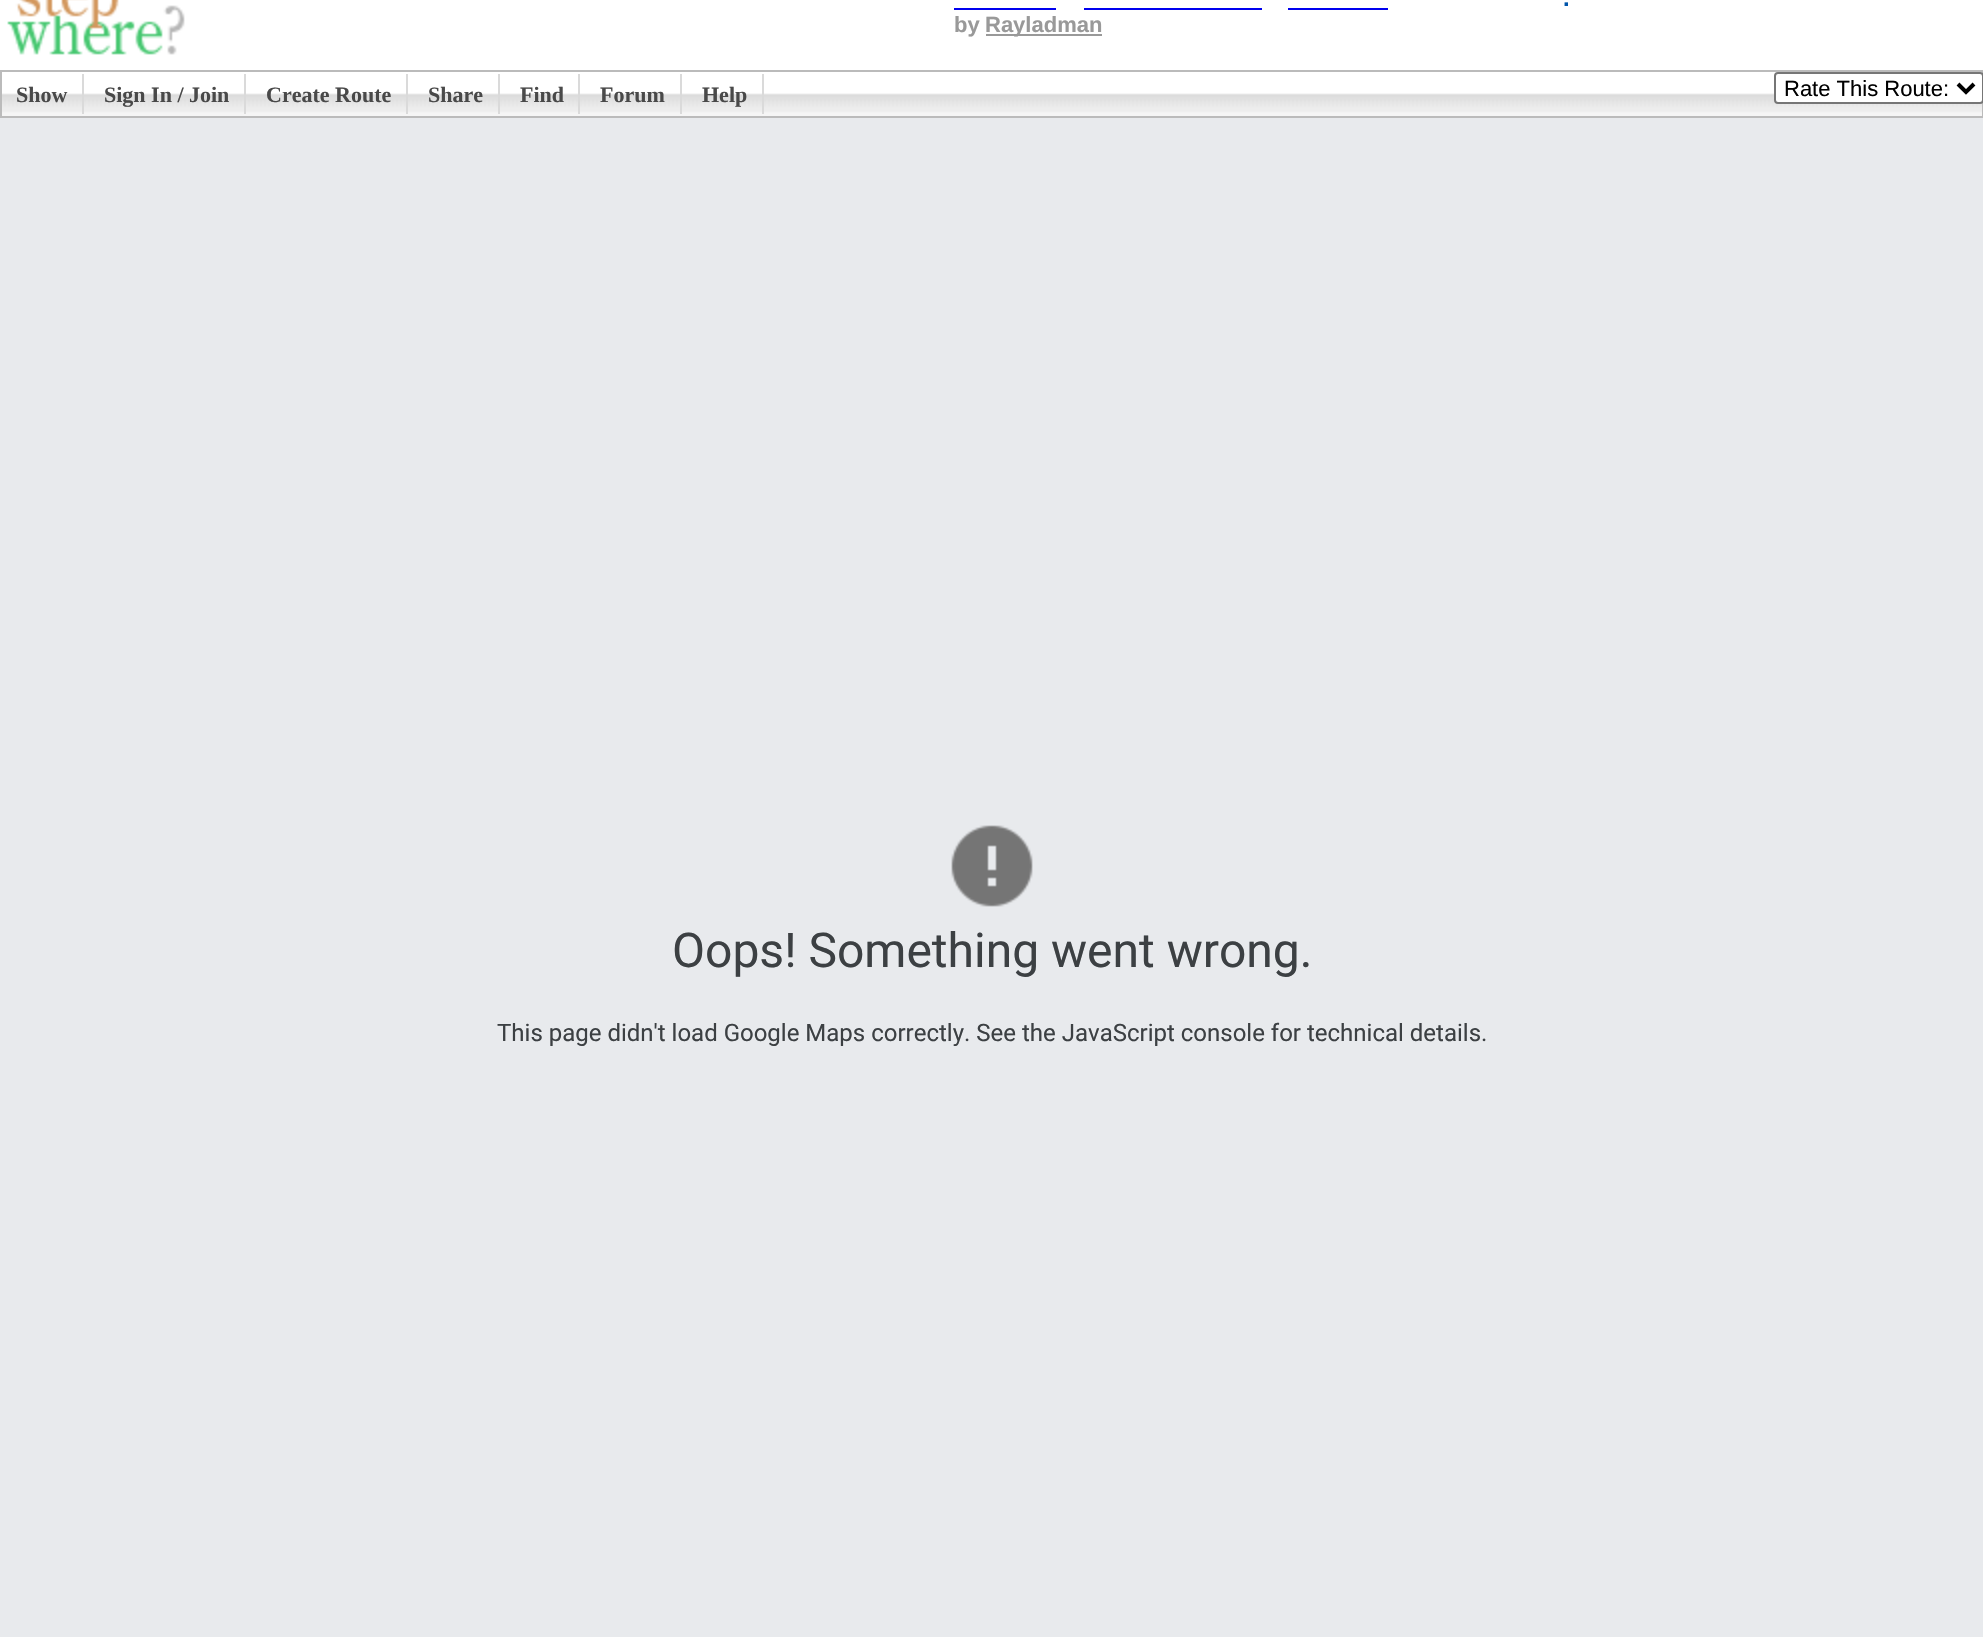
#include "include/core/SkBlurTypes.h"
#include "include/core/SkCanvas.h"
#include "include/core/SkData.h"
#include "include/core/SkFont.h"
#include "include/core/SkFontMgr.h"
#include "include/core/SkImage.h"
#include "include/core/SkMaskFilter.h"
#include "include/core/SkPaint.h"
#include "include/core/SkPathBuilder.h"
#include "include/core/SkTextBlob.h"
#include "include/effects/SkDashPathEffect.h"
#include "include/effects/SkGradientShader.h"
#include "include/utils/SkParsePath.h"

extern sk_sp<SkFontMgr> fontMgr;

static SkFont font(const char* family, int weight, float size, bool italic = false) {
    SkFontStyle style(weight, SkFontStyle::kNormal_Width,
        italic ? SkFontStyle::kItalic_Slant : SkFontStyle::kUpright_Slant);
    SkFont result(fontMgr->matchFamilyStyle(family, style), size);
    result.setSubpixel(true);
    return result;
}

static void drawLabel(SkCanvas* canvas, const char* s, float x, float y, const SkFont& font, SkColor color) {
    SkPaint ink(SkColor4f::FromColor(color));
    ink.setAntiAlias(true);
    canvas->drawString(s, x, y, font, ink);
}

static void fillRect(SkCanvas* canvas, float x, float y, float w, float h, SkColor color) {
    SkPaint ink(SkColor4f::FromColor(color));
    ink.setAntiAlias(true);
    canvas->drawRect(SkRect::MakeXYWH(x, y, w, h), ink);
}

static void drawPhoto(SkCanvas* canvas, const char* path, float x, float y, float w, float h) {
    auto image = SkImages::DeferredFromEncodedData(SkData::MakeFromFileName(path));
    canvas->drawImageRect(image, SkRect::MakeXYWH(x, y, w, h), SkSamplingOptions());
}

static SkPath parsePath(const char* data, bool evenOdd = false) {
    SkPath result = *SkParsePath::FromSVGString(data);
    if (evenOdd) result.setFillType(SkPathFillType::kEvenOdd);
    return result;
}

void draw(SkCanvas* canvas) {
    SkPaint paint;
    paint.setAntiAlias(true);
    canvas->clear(0xFFFFFFFF);
    drawPhoto(canvas, "assets/img1.png", 7, 0, 178, 55);
    SkFont font1 = font("Liberation Sans", 700, 24);
    drawLabel(canvas, ".", 1563, 6, font1, 0xFF0055AA);
    fillRect(canvas, 954, 8, 102, 2, 0xFF0000EE);
    fillRect(canvas, 1084, 8, 178, 2, 0xFF0000EE);
    fillRect(canvas, 1288, 8, 100, 2, 0xFF0000EE);
    SkFont font2 = font("Liberation Sans", 700, 22);
    drawLabel(canvas, "by", 954, 32, font2, 0xFF999999);
    fillRect(canvas, 986, 34, 116, 2, 0xFF999999);
    drawLabel(canvas, "Rayladman", 985, 32, font2, 0xFF999999);
    drawPhoto(canvas, "assets/img2.png", 2, 93, 1980, 23);
    paint.setStroke(true);
    paint.setStrokeWidth(2);
    paint.setColor(0xFFBBBBBB);
    canvas->drawRect(SkRect::MakeXYWH(1, 71, 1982, 46), paint);
    SkFont font3 = font("Liberation Serif", 700, 22);
    drawLabel(canvas, "Show", 16, 102, font3, 0xFF494949);
    fillRect(canvas, 82, 74, 2, 40, 0xFFDADADA);
    drawLabel(canvas, "Sign In / Join", 104, 102, font3, 0xFF494949);
    fillRect(canvas, 244, 74, 2, 40, 0xFFDADADA);
    drawLabel(canvas, "Create Route", 266, 102, font3, 0xFF494949);
    fillRect(canvas, 406, 74, 2, 40, 0xFFDADADA);
    drawLabel(canvas, "Share", 428, 102, font3, 0xFF494949);
    fillRect(canvas, 498, 74, 2, 40, 0xFFDADADA);
    drawLabel(canvas, "Find", 520, 102, font3, 0xFF494949);
    fillRect(canvas, 578, 74, 2, 40, 0xFFDADADA);
    drawLabel(canvas, "Forum", 600, 102, font3, 0xFF494949);
    fillRect(canvas, 680, 74, 2, 40, 0xFFDADADA);
    drawLabel(canvas, "Help", 702, 102, font3, 0xFF494949);
    fillRect(canvas, 762, 74, 2, 40, 0xFFDADADA);
    paint.setStroke(false);
    paint.setColor(0xFFFFFFFF);
    canvas->drawRoundRect(SkRect::MakeXYWH(1775, 73, 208, 30), 3, 3, paint);
    paint.setStroke(true);
    paint.setColor(0xFF767676);
    canvas->drawRoundRect(SkRect::MakeXYWH(1775, 73, 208, 30), 3, 3, paint);
    paint.setStrokeWidth(4);
    paint.setColor(0xFF000000);
    canvas->drawPath(parsePath("M1958 84L1966 92L1974 84"), paint);
    SkFont font4 = font("Liberation Sans", 400, 22);
    drawLabel(canvas, "Rate This Route:", 1784, 96, font4, 0xFF000000);
    fillRect(canvas, 0, 118, 1983, 1519, 0xFFE8EAED);
    drawPhoto(canvas, "assets/img3.png", 951, 825, 82, 82);
    SkFont font5 = font("Roboto", 400, 48);
    drawLabel(canvas, "Oops! Something went wrong.", 672, 967, font5, 0xFF3C4043);
    SkFont font6 = font("Roboto", 400, 24);
    drawLabel(canvas, "This page didn't load Google Maps correctly. See the JavaScript console for technical details.", 497, 1041, font6, 0xFF3C4043);
}
